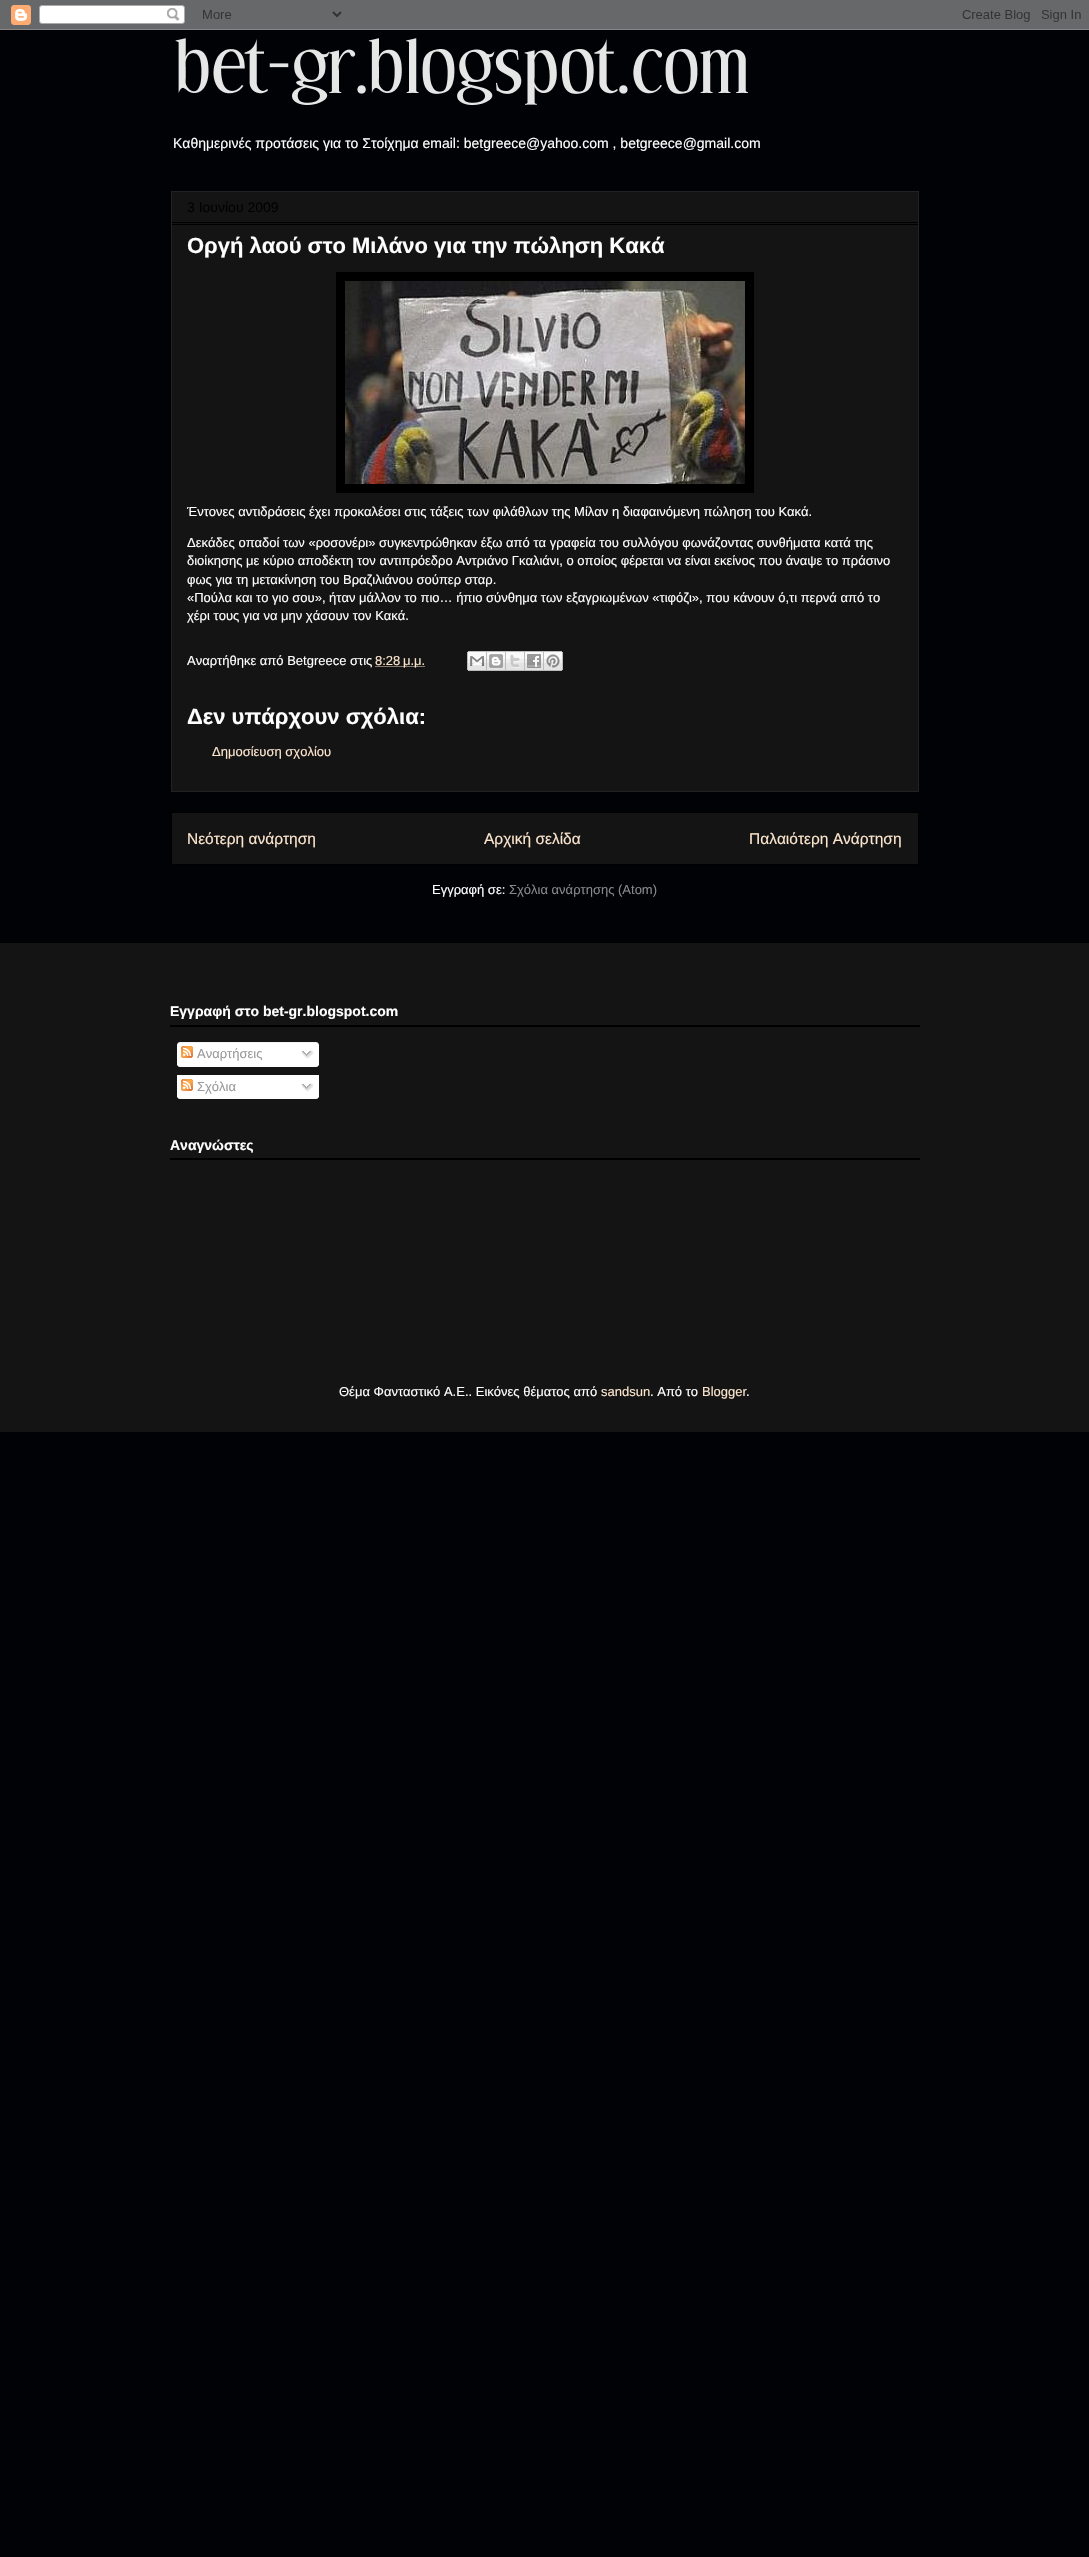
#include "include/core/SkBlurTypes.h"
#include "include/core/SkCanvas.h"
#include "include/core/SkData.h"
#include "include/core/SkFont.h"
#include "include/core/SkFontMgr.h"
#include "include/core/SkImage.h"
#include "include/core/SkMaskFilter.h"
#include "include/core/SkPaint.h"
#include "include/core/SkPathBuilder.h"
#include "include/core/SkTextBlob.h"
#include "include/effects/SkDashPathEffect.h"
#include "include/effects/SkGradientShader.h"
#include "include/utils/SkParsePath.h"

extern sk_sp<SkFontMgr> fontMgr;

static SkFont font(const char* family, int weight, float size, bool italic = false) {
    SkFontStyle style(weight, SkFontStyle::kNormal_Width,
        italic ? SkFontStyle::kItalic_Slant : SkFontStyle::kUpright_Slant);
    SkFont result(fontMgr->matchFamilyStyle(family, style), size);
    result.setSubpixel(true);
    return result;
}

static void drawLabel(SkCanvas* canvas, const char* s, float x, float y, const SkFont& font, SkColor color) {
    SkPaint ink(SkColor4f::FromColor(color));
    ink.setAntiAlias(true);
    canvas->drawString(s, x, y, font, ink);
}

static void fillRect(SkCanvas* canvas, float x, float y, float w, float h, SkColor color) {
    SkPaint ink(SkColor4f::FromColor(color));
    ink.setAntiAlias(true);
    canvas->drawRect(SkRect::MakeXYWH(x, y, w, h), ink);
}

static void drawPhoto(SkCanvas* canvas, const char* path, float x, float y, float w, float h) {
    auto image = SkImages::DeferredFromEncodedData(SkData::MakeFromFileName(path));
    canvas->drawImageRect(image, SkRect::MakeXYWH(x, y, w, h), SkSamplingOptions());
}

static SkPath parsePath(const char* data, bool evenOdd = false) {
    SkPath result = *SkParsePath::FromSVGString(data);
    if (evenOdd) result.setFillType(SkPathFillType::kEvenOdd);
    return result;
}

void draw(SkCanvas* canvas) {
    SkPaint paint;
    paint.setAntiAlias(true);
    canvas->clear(0xFF010206);
    drawPhoto(canvas, "assets/img1.png", 0, 0, 1089, 30);
    drawPhoto(canvas, "assets/img2.png", 175, 38, 573, 67);
    SkFont font1 = font("Liberation Sans", 400, 14);
    drawLabel(canvas, "Καθημερινές προτάσεις για το Στοίχημα email: betgreece@yahoo.com , betgreece@gmail.com", 173, 148, font1, 0xFFFFFFFF);
    paint.setColor(0xFF141414);
    canvas->drawRect(SkRect::MakeXYWH(171.5f, 191.5f, 747, 600), paint);
    paint.setStroke(true);
    paint.setStrokeWidth(1);
    paint.setColor(0xFF222222);
    canvas->drawRect(SkRect::MakeXYWH(171.5f, 191.5f, 747, 600), paint);
    fillRect(canvas, 172, 222, 746, 1, 0xFF000000);
    drawLabel(canvas, "3 Ιουνίου 2009", 187, 212, font1, 0xFF000000);
    fillRect(canvas, 172, 224, 746, 1, 0xFF000000);
    SkFont font2 = font("Liberation Sans", 700, 22);
    drawLabel(canvas, "Οργή λαού στο Μιλάνο για την πώληση Κακά", 187, 253, font2, 0xFFFFFFFF);
    fillRect(canvas, 336, 272, 418, 221, 0xFF000000);
    drawPhoto(canvas, "assets/img3.png", 345, 281, 400, 203);
    SkFont font3 = font("Liberation Sans", 400, 13);
    drawLabel(canvas, "Έντονες αντιδράσεις έχει προκαλέσει στις τάξεις των φιλάθλων της Μίλαν η διαφαινόμενη πώληση του Κακά.", 187, 516, font3, 0xFFFFFFFF);
    drawLabel(canvas, "Δεκάδες οπαδοί των «ροσονέρι» συγκεντρώθηκαν έξω από τα γραφεία του συλλόγου φωνάζοντας συνθήματα κατά της", 187, 547, font3, 0xFFFFFFFF);
    drawLabel(canvas, "διοίκησης με κύριο αποδέκτη τον αντιπρόεδρο Αντριάνο Γκαλιάνι, ο οποίος φέρεται να είναι εκείνος που άναψε το πράσινο", 187, 565, font3, 0xFFFFFFFF);
    drawLabel(canvas, "φως για τη μετακίνηση του Βραζιλιάνου σούπερ σταρ.", 187, 584, font3, 0xFFFFFFFF);
    drawLabel(canvas, "«Πούλα και το γιο σου», ήταν μάλλον το πιο… ήπιο σύνθημα των εξαγριωμένων «τιφόζι», που κάνουν ό,τι περνά από το", 187, 602, font3, 0xFFFFFFFF);
    drawLabel(canvas, "χέρι τους για να μην χάσουν τον Κακά.", 187, 620, font3, 0xFFFFFFFF);
    drawLabel(canvas, "Αναρτήθηκε από Betgreece στις", 187, 665, font3, 0xFFFFFFFF);
    paint.setColor(0xFFFCE5CD);
    paint.setPathEffect(SkDashPathEffect::Make({{1, 1}}, 0));
    canvas->drawPath(parsePath("M375.5 666.5H425.5"), paint);
    paint.setPathEffect(nullptr);
    drawLabel(canvas, "8:28 μ.μ.", 375, 665, font3, 0xFFFCE5CD);
    drawPhoto(canvas, "assets/img4.png", 467, 651, 20, 20);
    drawPhoto(canvas, "assets/img5.png", 487, 651, 19, 20);
    drawPhoto(canvas, "assets/img6.png", 506, 651, 19, 20);
    drawPhoto(canvas, "assets/img7.png", 525, 651, 19, 20);
    drawPhoto(canvas, "assets/img8.png", 544, 651, 19, 20);
    drawLabel(canvas, "Δεν υπάρχουν σχόλια:", 187, 724, font2, 0xFFFFFFFF);
    drawLabel(canvas, "Δημοσίευση σχολίου", 212, 756, font3, 0xFFFCE5CD);
    paint.setStroke(false);
    paint.setColor(0xFF141414);
    canvas->drawRect(SkRect::MakeXYWH(171.5f, 812.5f, 747, 52), paint);
    paint.setStroke(true);
    paint.setColor(0xFF000000);
    canvas->drawRect(SkRect::MakeXYWH(171.5f, 812.5f, 747, 52), paint);
    SkFont font4 = font("Liberation Sans", 400, 15.5f);
    drawLabel(canvas, "Νεότερη ανάρτηση", 187, 844, font4, 0xFFFCE5CD);
    drawLabel(canvas, "Αρχική σελίδα", 484, 844, font4, 0xFFFCE5CD);
    drawLabel(canvas, "Παλαιότερη Ανάρτηση", 749, 844, font4, 0xFFFCE5CD);
    drawLabel(canvas, "Εγγραφή σε:", 432, 894, font3, 0xFFFFFFFF);
    drawLabel(canvas, "Σχόλια ανάρτησης (Atom)", 509, 894, font3, 0xFF888888);
    fillRect(canvas, 0, 943, 1089, 489, 0xFF141414);
    fillRect(canvas, 0, 942, 1089, 1, 0xFF000000);
    SkFont font5 = font("Liberation Sans", 700, 14);
    drawLabel(canvas, "Εγγραφή στο bet-gr.blogspot.com", 170, 1016, font5, 0xFFFFFFFF);
    fillRect(canvas, 170, 1025, 750, 2, 0xFF000000);
    drawPhoto(canvas, "assets/img9.png", 177, 1042, 142, 23);
    drawPhoto(canvas, "assets/img10.png", 181, 1046, 12, 12);
    drawLabel(canvas, "Αναρτήσεις", 197, 1058, font3, 0xFF999999);
    drawPhoto(canvas, "assets/img11.png", 301, 1050, 13, 9);
    drawPhoto(canvas, "assets/img12.png", 177, 1065, 142, 2);
    fillRect(canvas, 177, 1075, 142, 22, 0xFFFFFFFF);
    drawPhoto(canvas, "assets/img10.png", 181, 1079, 12, 12);
    drawLabel(canvas, "Σχόλια", 197, 1091, font3, 0xFF999999);
    drawPhoto(canvas, "assets/img11.png", 301, 1083, 13, 9);
    drawPhoto(canvas, "assets/img12.png", 177, 1097, 142, 2);
    drawLabel(canvas, "Αναγνώστες", 170, 1150, font5, 0xFFFFFFFF);
    fillRect(canvas, 170, 1158, 750, 2, 0xFF000000);
    drawLabel(canvas, "Θέμα Φανταστικό Α.Ε.. Εικόνες θέματος από", 339, 1396, font3, 0xFFFFFFFF);
    drawLabel(canvas, "sandsun", 601, 1396, font3, 0xFFFCE5CD);
    drawLabel(canvas, ". Από το", 650, 1396, font3, 0xFFFFFFFF);
    drawLabel(canvas, "Blogger", 702, 1396, font3, 0xFFFCE5CD);
    drawLabel(canvas, ".", 746, 1396, font3, 0xFFFFFFFF);
}
